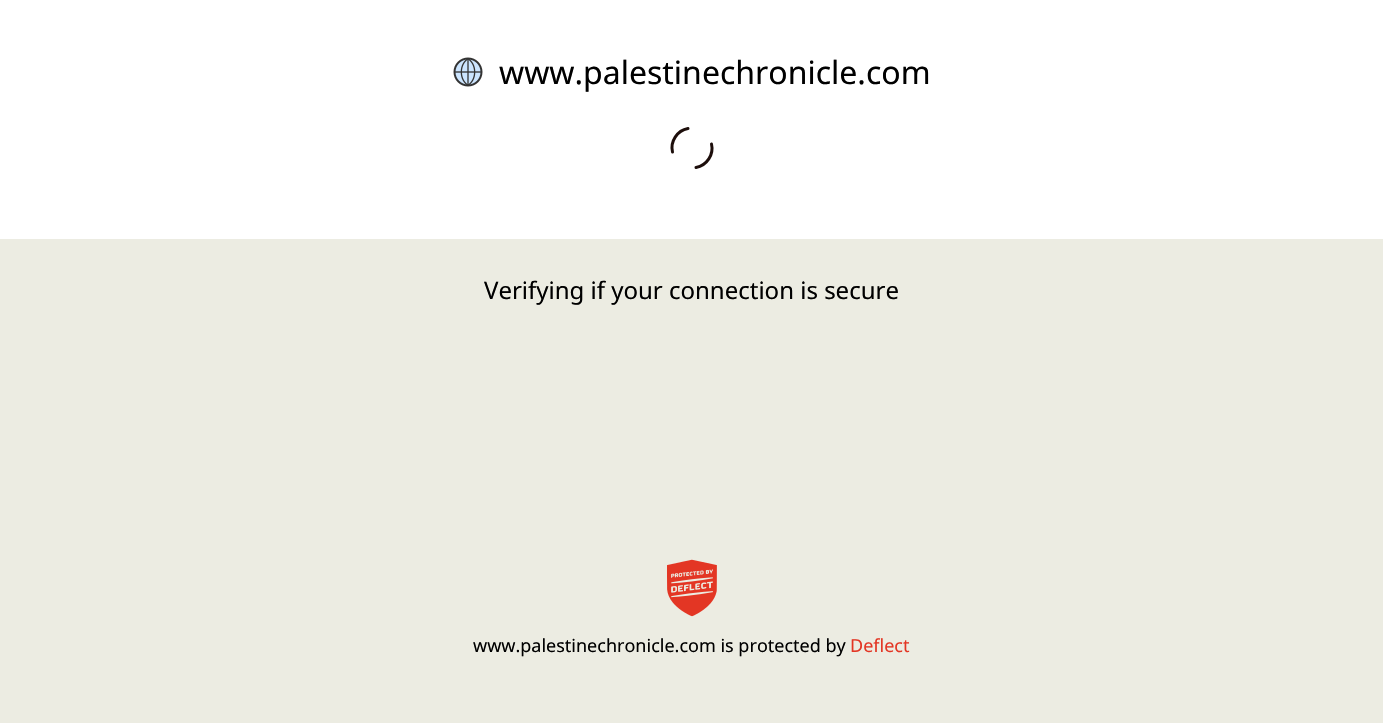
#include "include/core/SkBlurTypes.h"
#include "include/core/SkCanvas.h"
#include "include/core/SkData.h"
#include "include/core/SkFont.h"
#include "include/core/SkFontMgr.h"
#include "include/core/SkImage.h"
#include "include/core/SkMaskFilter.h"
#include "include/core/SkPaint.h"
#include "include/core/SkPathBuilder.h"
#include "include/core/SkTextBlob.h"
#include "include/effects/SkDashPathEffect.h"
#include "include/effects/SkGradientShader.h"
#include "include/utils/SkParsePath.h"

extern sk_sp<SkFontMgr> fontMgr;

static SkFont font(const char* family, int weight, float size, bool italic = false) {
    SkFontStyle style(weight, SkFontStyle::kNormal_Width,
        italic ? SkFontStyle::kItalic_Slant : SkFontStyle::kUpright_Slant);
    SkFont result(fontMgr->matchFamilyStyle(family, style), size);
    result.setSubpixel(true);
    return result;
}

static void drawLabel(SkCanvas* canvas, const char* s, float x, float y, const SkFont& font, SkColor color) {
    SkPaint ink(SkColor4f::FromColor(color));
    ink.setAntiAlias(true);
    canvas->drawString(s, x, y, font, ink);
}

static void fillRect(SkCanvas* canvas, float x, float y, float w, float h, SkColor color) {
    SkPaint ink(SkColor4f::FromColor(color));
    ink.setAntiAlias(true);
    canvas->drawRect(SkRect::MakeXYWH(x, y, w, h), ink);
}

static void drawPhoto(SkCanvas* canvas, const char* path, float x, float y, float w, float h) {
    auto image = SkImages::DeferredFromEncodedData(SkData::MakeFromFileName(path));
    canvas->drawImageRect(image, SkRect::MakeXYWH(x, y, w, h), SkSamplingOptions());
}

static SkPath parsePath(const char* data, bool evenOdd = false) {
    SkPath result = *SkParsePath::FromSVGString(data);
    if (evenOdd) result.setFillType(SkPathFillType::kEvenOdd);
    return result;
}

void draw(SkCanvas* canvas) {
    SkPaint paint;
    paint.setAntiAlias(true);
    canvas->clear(0xFFFFFFFF);
    drawPhoto(canvas, "assets/img1.png", 453, 57, 30, 30);
    SkFont font1 = font("Noto Sans", 400, 32);
    drawLabel(canvas, "www.palestinechronicle.com", 499, 84, font1, 0xFF000000);
    paint.setStroke(true);
    paint.setStrokeWidth(3);
    paint.setStrokeCap(SkPaint::kRound_Cap);
    paint.setColor(0xFF1D0E0B);
    canvas->drawPath(parsePath("M672.5 152C670 141.5 677 130.5 688 128.5M711.5 144C714 154.5 707 165.5 696 167.5"), paint);
    fillRect(canvas, 0, 239, 1383, 484, 0xFFECECE2);
    SkFont font2 = font("Noto Sans", 400, 24);
    drawLabel(canvas, "Verifying if your connection is secure", 484, 299, font2, 0xFF000000);
    drawPhoto(canvas, "assets/img2.png", 667, 559, 50, 58);
    SkFont font3 = font("Noto Sans", 400, 18);
    drawLabel(canvas, "www.palestinechronicle.com is protected by", 473, 652, font3, 0xFF000000);
    drawLabel(canvas, "Deflect", 850, 652, font3, 0xFFE33624);
}
